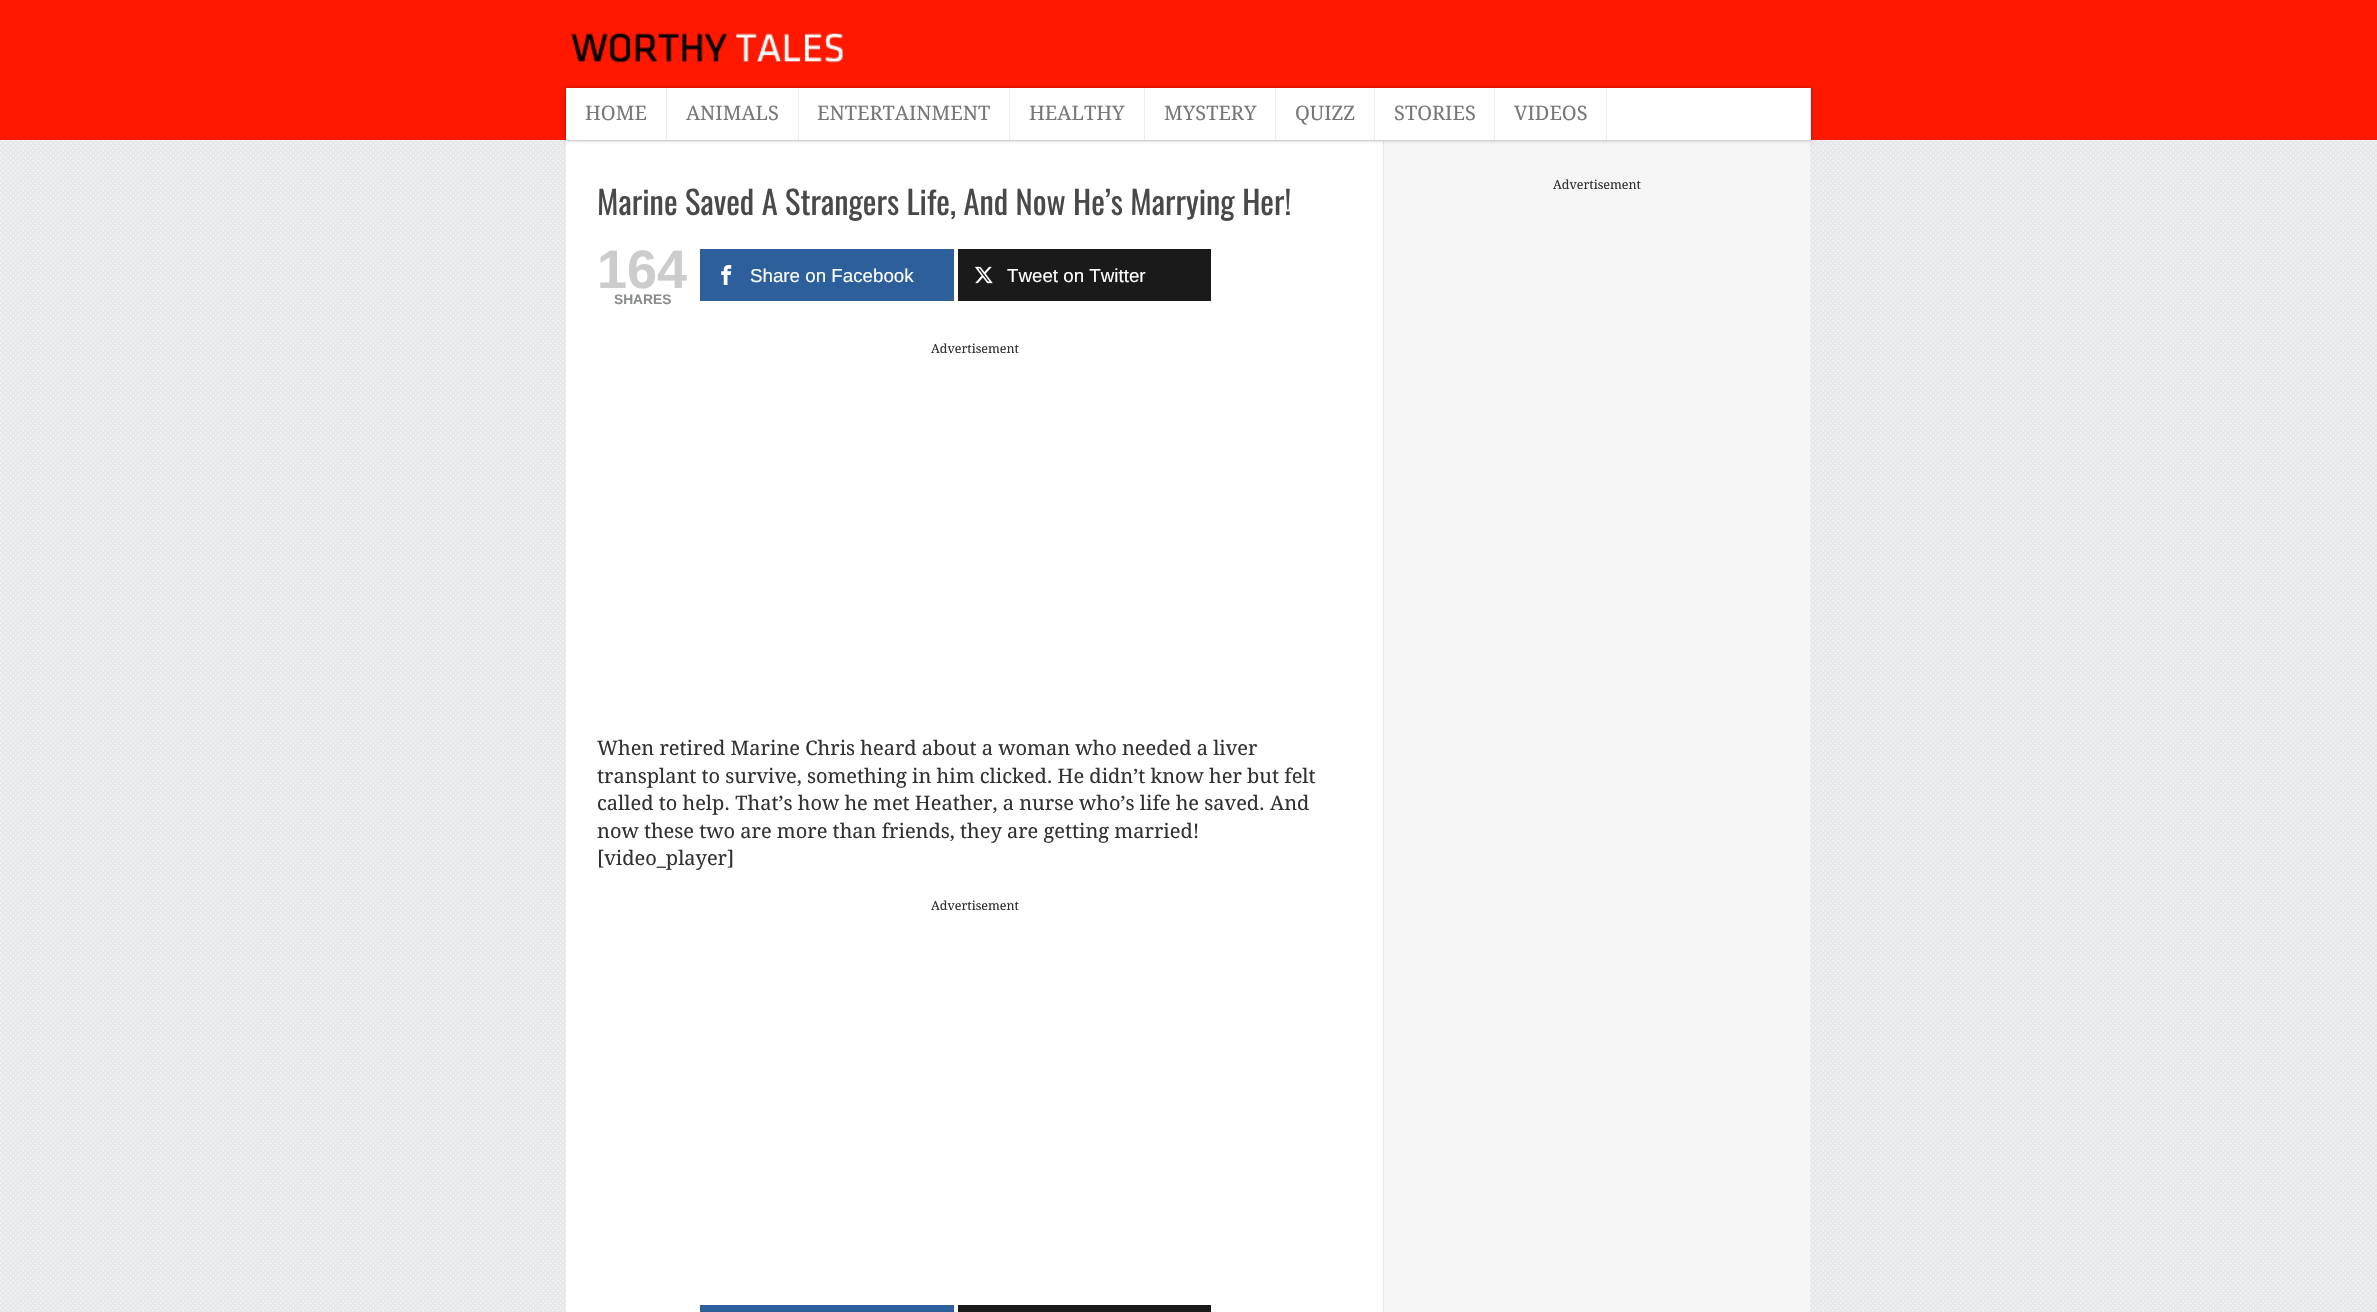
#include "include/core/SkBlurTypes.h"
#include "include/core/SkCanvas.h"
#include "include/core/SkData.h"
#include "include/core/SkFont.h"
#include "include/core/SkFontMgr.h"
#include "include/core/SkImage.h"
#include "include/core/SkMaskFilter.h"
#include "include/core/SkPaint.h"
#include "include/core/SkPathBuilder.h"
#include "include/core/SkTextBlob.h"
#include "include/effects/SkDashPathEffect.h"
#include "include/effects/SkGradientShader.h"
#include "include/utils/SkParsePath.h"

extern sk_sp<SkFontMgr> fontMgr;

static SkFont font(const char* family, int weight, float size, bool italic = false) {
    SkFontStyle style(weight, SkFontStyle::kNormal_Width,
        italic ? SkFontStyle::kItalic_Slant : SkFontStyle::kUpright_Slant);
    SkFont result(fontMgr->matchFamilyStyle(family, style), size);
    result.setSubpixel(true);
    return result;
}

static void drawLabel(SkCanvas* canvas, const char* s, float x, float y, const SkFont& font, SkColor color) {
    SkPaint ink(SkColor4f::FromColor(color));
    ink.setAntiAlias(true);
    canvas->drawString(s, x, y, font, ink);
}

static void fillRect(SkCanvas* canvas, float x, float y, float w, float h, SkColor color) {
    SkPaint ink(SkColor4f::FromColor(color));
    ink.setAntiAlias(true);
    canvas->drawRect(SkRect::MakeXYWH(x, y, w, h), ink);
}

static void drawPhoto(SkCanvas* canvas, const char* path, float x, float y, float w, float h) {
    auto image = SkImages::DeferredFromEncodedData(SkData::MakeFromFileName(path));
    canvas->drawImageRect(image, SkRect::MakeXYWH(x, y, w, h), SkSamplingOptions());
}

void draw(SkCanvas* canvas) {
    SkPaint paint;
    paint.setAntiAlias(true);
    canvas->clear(0xFFF0F2F3);
    drawPhoto(canvas, "assets/img1.png", 0, 140, 2377, 1172);
    fillRect(canvas, 0, 0, 2377, 140, 0xFFFF1800);
    drawPhoto(canvas, "assets/img2.png", 571, 33, 272, 30);
    paint.setColor(0x4D000000);
    paint.setMaskFilter(SkMaskFilter::MakeBlur(kNormal_SkBlurStyle, 2));
    canvas->drawRect(SkRect::MakeXYWH(566, 141, 1245, 1), paint);
    paint.setMaskFilter(nullptr);
    fillRect(canvas, 566, 140, 1245, 1, 0xFFEEEEEE);
    fillRect(canvas, 1384, 141, 426, 1171, 0xFFF5F5F5);
    fillRect(canvas, 566, 141, 817, 1171, 0xFFFFFFFF);
    fillRect(canvas, 1383, 141, 1, 1171, 0xFFE8E8E8);
    paint.setMaskFilter(SkMaskFilter::MakeBlur(kNormal_SkBlurStyle, 2));
    canvas->drawRect(SkRect::MakeXYWH(566, 88, 1245, 52), paint);
    paint.setMaskFilter(nullptr);
    fillRect(canvas, 566, 88, 1245, 52, 0xFFFFFFFF);
    fillRect(canvas, 666, 88, 1, 52, 0xFFEEEEEE);
    SkFont font1 = font("Droid Serif", 400, 20);
    drawLabel(canvas, "HOME", 585, 120, font1, 0xFF777777);
    fillRect(canvas, 798, 88, 1, 52, 0xFFEEEEEE);
    drawLabel(canvas, "ANIMALS", 686, 120, font1, 0xFF777777);
    fillRect(canvas, 1009, 88, 1, 52, 0xFFEEEEEE);
    drawLabel(canvas, "ENTERTAINMENT", 817, 120, font1, 0xFF777777);
    fillRect(canvas, 1144, 88, 1, 52, 0xFFEEEEEE);
    drawLabel(canvas, "HEALTHY", 1029, 120, font1, 0xFF777777);
    fillRect(canvas, 1275, 88, 1, 52, 0xFFEEEEEE);
    drawLabel(canvas, "MYSTERY", 1164, 120, font1, 0xFF777777);
    fillRect(canvas, 1374, 88, 1, 52, 0xFFEEEEEE);
    drawLabel(canvas, "QUIZZ", 1295, 120, font1, 0xFF777777);
    fillRect(canvas, 1494, 88, 1, 52, 0xFFEEEEEE);
    drawLabel(canvas, "STORIES", 1394, 120, font1, 0xFF777777);
    fillRect(canvas, 1606, 88, 1, 52, 0xFFEEEEEE);
    drawLabel(canvas, "VIDEOS", 1514, 120, font1, 0xFF777777);
    SkFont font2 = font("Droid Serif", 400, 12.5f);
    drawLabel(canvas, "Advertisement", 1553, 189, font2, 0xFF313131);
    SkFont font3 = font("Oswald", 400, 32.5f);
    drawLabel(canvas, "Marine Saved A Strangers Life, And Now He’s Marrying Her!", 597, 215, font3, 0xFF494949);
    SkFont font4 = font("Liberation Sans", 700, 54);
    drawLabel(canvas, "164", 597, 288, font4, 0xFFCCCCCC);
    SkFont font5 = font("Liberation Sans", 700, 13.75f);
    drawLabel(canvas, "SHARES", 614, 304, font5, 0xFF8A8C8E);
    fillRect(canvas, 700, 249, 254, 52, 0xFF2D5F9A);
    drawPhoto(canvas, "assets/img3.png", 721, 265, 11, 20);
    SkFont font6 = font("Liberation Sans", 400, 18.75f);
    drawLabel(canvas, "Share on Facebook", 750, 282, font6, 0xFFFFFFFF);
    fillRect(canvas, 958, 249, 253, 52, 0xFF1A1A1A);
    drawPhoto(canvas, "assets/img4.png", 975, 266, 18, 18);
    drawLabel(canvas, "Tweet on Twitter", 1007, 282, font6, 0xFFFFFFFF);
    drawLabel(canvas, "Advertisement", 931, 353, font2, 0xFF313131);
    drawLabel(canvas, "When retired Marine Chris heard about a woman who needed a liver", 597, 755, font1, 0xFF313131);
    drawLabel(canvas, "transplant to survive, something in him clicked. He didn’t know her but felt", 597, 783, font1, 0xFF313131);
    drawLabel(canvas, "called to help. That’s how he met Heather, a nurse who’s life he saved. And", 597, 810, font1, 0xFF313131);
    drawLabel(canvas, "now these two are more than friends, they are getting married!", 597, 838, font1, 0xFF313131);
    drawLabel(canvas, "[video_player]", 597, 865, font1, 0xFF313131);
    drawLabel(canvas, "Advertisement", 931, 910, font2, 0xFF313131);
    fillRect(canvas, 700, 1305, 254, 7, 0xFF2D5F9A);
    fillRect(canvas, 958, 1305, 253, 7, 0xFF1A1A1A);
}
